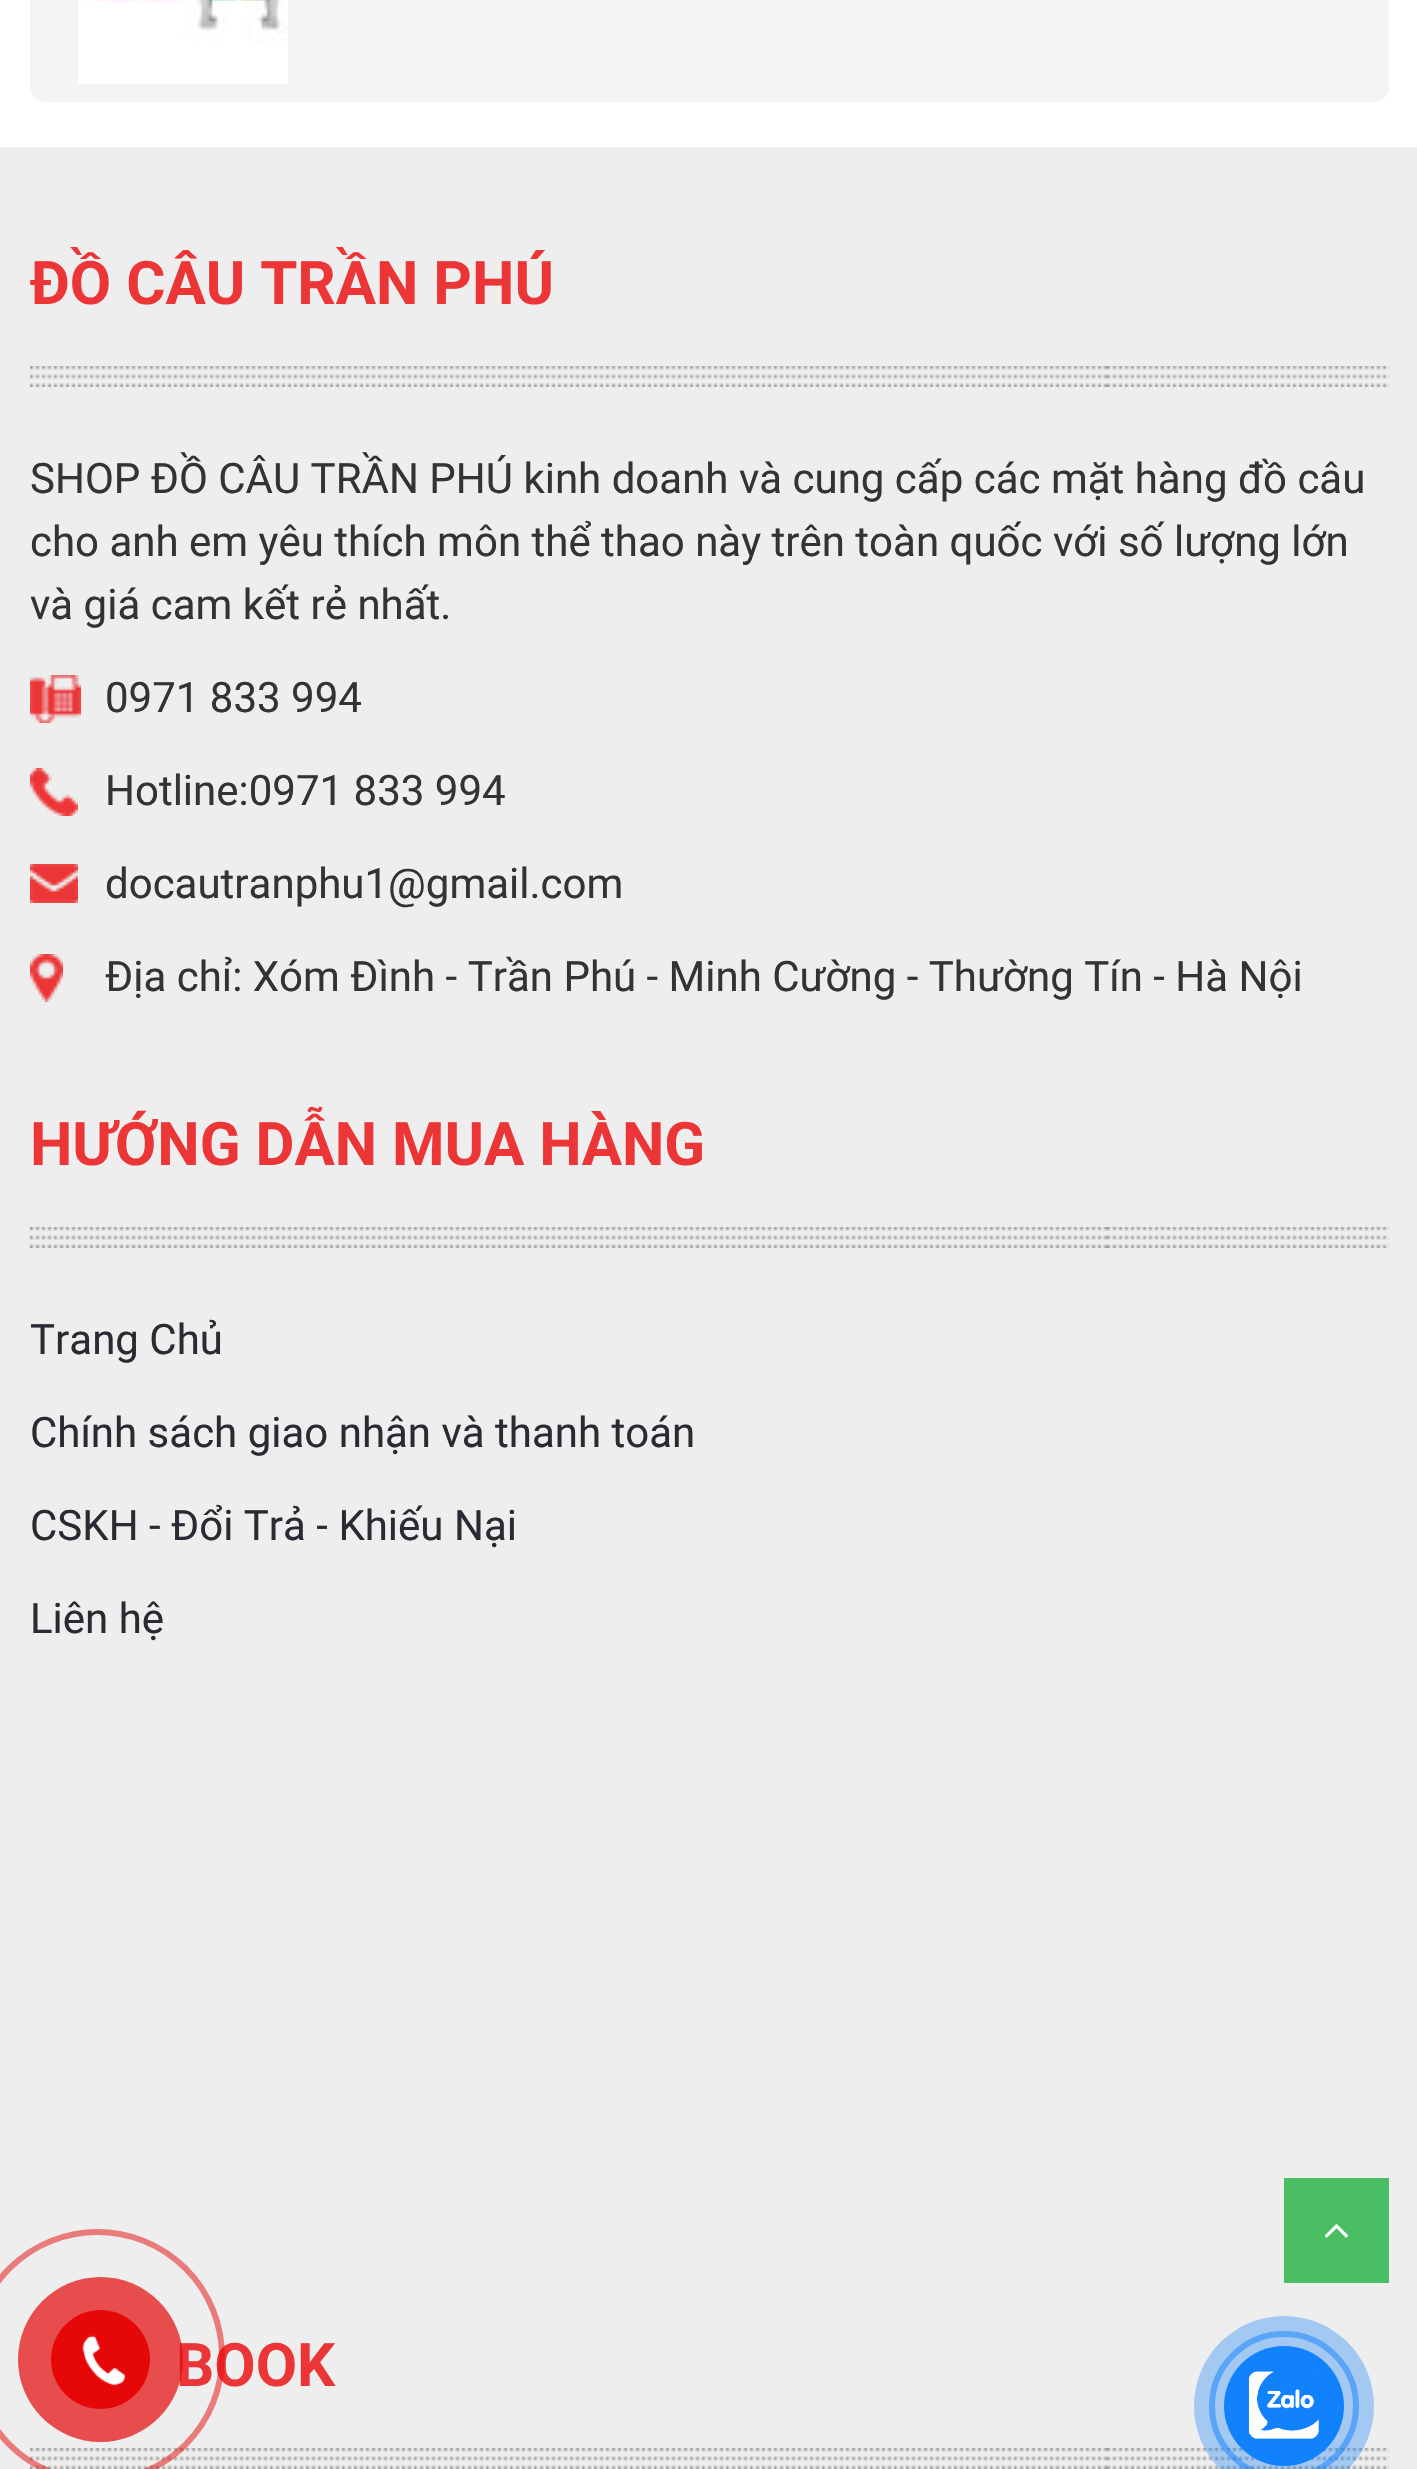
#include "include/core/SkBlurTypes.h"
#include "include/core/SkCanvas.h"
#include "include/core/SkData.h"
#include "include/core/SkFont.h"
#include "include/core/SkFontMgr.h"
#include "include/core/SkImage.h"
#include "include/core/SkMaskFilter.h"
#include "include/core/SkPaint.h"
#include "include/core/SkPathBuilder.h"
#include "include/core/SkTextBlob.h"
#include "include/effects/SkDashPathEffect.h"
#include "include/effects/SkGradientShader.h"
#include "include/utils/SkParsePath.h"

extern sk_sp<SkFontMgr> fontMgr;

static SkFont font(const char* family, int weight, float size, bool italic = false) {
    SkFontStyle style(weight, SkFontStyle::kNormal_Width,
        italic ? SkFontStyle::kItalic_Slant : SkFontStyle::kUpright_Slant);
    SkFont result(fontMgr->matchFamilyStyle(family, style), size);
    result.setSubpixel(true);
    return result;
}

static void drawLabel(SkCanvas* canvas, const char* s, float x, float y, const SkFont& font, SkColor color) {
    SkPaint ink(SkColor4f::FromColor(color));
    ink.setAntiAlias(true);
    canvas->drawString(s, x, y, font, ink);
}

static void fillRect(SkCanvas* canvas, float x, float y, float w, float h, SkColor color) {
    SkPaint ink(SkColor4f::FromColor(color));
    ink.setAntiAlias(true);
    canvas->drawRect(SkRect::MakeXYWH(x, y, w, h), ink);
}

static void fillRRect(SkCanvas* canvas, float x, float y, float w, float h, float radius, SkColor color) {
    SkPaint ink(SkColor4f::FromColor(color));
    ink.setAntiAlias(true);
    canvas->drawRoundRect(SkRect::MakeXYWH(x, y, w, h), radius, radius, ink);
}

static void drawPhoto(SkCanvas* canvas, const char* path, float x, float y, float w, float h) {
    auto image = SkImages::DeferredFromEncodedData(SkData::MakeFromFileName(path));
    canvas->drawImageRect(image, SkRect::MakeXYWH(x, y, w, h), SkSamplingOptions());
}

void draw(SkCanvas* canvas) {
    SkPaint paint;
    paint.setAntiAlias(true);
    canvas->clear(0xFFFFFFFF);
    fillRRect(canvas, 30, -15, 1359, 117, 15, 0xFFF4F4F4);
    drawPhoto(canvas, "assets/img1.png", 78, 0, 210, 84);
    fillRect(canvas, 0, 147, 1417, 2322, 0xFFEEEEEE);
    drawPhoto(canvas, "assets/img2.png", 30, 366, 1359, 21);
    SkFont font1 = font("Roboto", 700, 60);
    drawLabel(canvas, "ĐỒ CÂU TRẦN PHÚ", 30, 304, font1, 0xFFEB3537);
    SkFont font2 = font("Roboto", 400, 42);
    drawLabel(canvas, "SHOP ĐỒ CÂU TRẦN PHÚ kinh doanh và cung cấp các mặt hàng đồ câu", 30, 493, font2, 0xFF333333);
    drawLabel(canvas, "cho anh em yêu thích môn thể thao này trên toàn quốc với số lượng lớn", 30, 556, font2, 0xFF333333);
    drawLabel(canvas, "và giá cam kết rẻ nhất.", 30, 619, font2, 0xFF333333);
    drawPhoto(canvas, "assets/img3.png", 30, 675, 51, 48);
    drawLabel(canvas, "0971 833 994", 105, 712, font2, 0xFF333333);
    drawPhoto(canvas, "assets/img4.png", 30, 768, 48, 48);
    drawLabel(canvas, "Hotline:0971 833 994", 105, 805, font2, 0xFF333333);
    drawPhoto(canvas, "assets/img5.png", 30, 864, 48, 39);
    drawLabel(canvas, "docautranphu1@gmail.com", 105, 898, font2, 0xFF333333);
    drawPhoto(canvas, "assets/img6.png", 30, 954, 33, 48);
    drawLabel(canvas, "Địa chỉ: Xóm Đình - Trần Phú - Minh Cường - Thường Tín - Hà Nội", 105, 991, font2, 0xFF333333);
    drawPhoto(canvas, "assets/img2.png", 30, 1227, 1359, 21);
    drawLabel(canvas, "HƯỚNG DẪN MUA HÀNG", 30, 1165, font1, 0xFFEB3537);
    drawLabel(canvas, "Trang Chủ", 30, 1354, font2, 0xFF292A32);
    drawLabel(canvas, "Chính sách giao nhận và thanh toán", 30, 1447, font2, 0xFF292A32);
    drawLabel(canvas, "CSKH - Đổi Trả - Khiếu Nại", 30, 1540, font2, 0xFF292A32);
    drawLabel(canvas, "Liên hệ", 30, 1633, font2, 0xFF292A32);
    drawPhoto(canvas, "assets/img2.png", 30, 2448, 1359, 21);
    drawLabel(canvas, "BOOK", 176, 2386, font1, 0xFFEB3537);
    paint.setStroke(true);
    paint.setStrokeWidth(6);
    paint.setColor(0x80E60808);
    canvas->drawCircle(97.5f, 2356.5f, 124.5f, paint);
    paint.setStroke(false);
    paint.setColor(0xB3E60808);
    canvas->drawCircle(100.5f, 2359.5f, 82.5f, paint);
    paint.setColor(0xFFE60808);
    canvas->drawCircle(100.5f, 2359.5f, 49.5f, paint);
    drawPhoto(canvas, "assets/img7.png", 82, 2335, 43, 51);
    fillRect(canvas, 1284, 2178, 105, 105, 0xFF4ABE63);
    drawPhoto(canvas, "assets/img8.png", 1324, 2224, 25, 14);
    paint.setStroke(true);
    paint.setColor(0x801182FC);
    canvas->drawCircle(1284, 2406, 72, paint);
    paint.setStroke(false);
    paint.setColor(0x571182FC);
    canvas->drawCircle(1284, 2406, 90, paint);
    paint.setColor(0xFF1182FC);
    canvas->drawCircle(1284, 2406, 60, paint);
    drawPhoto(canvas, "assets/img9.png", 1249, 2371, 70, 68);
}
